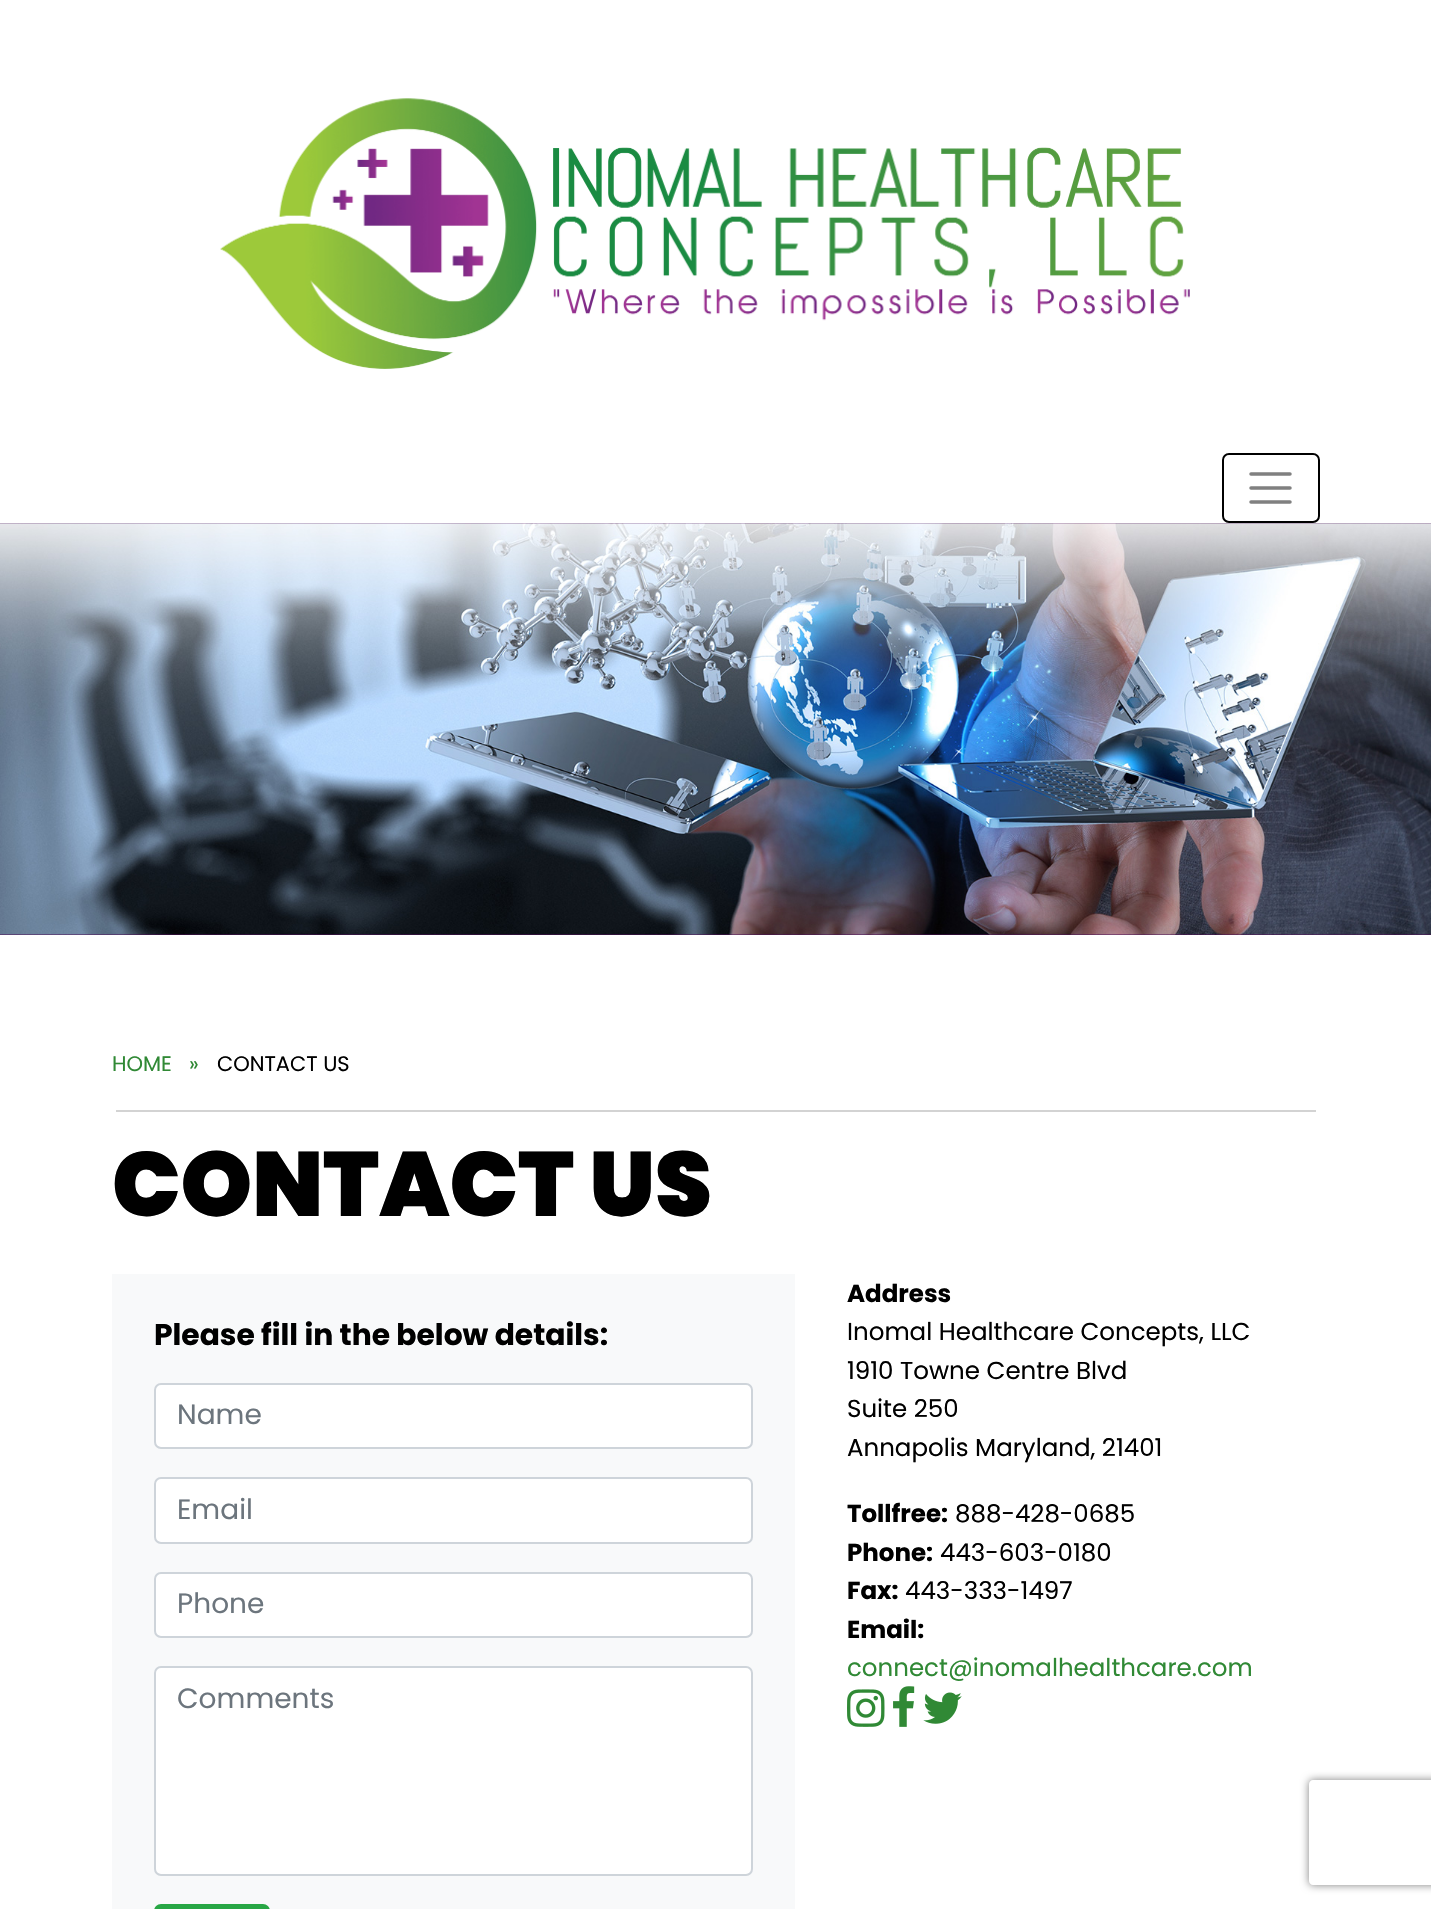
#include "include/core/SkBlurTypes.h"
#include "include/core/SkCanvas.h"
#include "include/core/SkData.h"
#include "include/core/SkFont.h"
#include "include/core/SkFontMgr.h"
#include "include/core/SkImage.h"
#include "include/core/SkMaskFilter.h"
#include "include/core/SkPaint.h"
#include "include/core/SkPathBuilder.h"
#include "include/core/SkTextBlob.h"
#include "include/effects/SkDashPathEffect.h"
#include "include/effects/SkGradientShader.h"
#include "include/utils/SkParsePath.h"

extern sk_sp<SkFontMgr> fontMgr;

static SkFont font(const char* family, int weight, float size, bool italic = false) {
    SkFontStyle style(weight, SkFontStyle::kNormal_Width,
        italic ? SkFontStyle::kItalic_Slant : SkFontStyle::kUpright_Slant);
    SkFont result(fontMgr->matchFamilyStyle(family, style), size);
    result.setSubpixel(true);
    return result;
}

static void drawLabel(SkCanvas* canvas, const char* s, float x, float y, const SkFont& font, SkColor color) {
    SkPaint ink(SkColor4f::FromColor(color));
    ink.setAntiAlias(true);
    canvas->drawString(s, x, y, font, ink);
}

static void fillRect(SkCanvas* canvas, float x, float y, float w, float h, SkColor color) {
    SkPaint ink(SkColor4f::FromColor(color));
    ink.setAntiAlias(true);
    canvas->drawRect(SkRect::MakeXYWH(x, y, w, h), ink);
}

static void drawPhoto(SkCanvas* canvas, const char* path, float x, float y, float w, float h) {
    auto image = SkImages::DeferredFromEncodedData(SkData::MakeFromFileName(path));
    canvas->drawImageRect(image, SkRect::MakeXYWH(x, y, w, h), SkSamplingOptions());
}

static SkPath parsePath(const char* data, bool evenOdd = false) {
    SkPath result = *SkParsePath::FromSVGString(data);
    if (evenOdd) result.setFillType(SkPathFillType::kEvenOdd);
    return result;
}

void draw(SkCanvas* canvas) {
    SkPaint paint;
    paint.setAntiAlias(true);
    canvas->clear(0xFF4B0D56);
    fillRect(canvas, 0, 0, 1431, 523, 0xFFFFFFFF);
    drawPhoto(canvas, "assets/img1.png", 220, 98, 970, 271);
    paint.setStroke(true);
    paint.setStrokeWidth(2);
    paint.setColor(0xFF000000);
    canvas->drawRoundRect(SkRect::MakeXYWH(1223, 454, 96, 68), 6, 6, paint);
    paint.setStrokeWidth(3.5f);
    paint.setStrokeCap(SkPaint::kRound_Cap);
    paint.setColor(0xFF808080);
    canvas->drawPath(parsePath("M1251 474H1290M1251 488H1290M1251 502H1290"), paint);
    drawPhoto(canvas, "assets/img2.png", 0, 523, 1431, 412);
    fillRect(canvas, 0, 935, 1431, 974, 0xFFFFFFFF);
    fillRect(canvas, 116, 1110, 1200, 2, 0xFFD3D3D3);
    SkFont font1 = font("Poppins", 400, 21);
    drawLabel(canvas, "HOME", 112, 1071, font1, 0xFF308935);
    drawLabel(canvas, "»", 189, 1071, font1, 0xFF308935);
    drawLabel(canvas, "CONTACT US", 217, 1071, font1, 0xFF000000);
    SkFont font2 = font("Poppins", 900, 91);
    drawLabel(canvas, "CONTACT US", 112, 1216, font2, 0xFF000000);
    fillRect(canvas, 112, 1274, 683, 635, 0xFFF8F9FA);
    SkFont font3 = font("Poppins", 700, 29.75f);
    drawLabel(canvas, "Please fill in the below details:", 154, 1345, font3, 0xFF000000);
    paint.setStroke(false);
    paint.setColor(0xFFFFFFFF);
    canvas->drawRoundRect(SkRect::MakeXYWH(155, 1384, 597, 64), 6, 6, paint);
    paint.setStroke(true);
    paint.setStrokeWidth(2);
    paint.setStrokeCap(SkPaint::kButt_Cap);
    paint.setColor(0xFFCED4DA);
    canvas->drawRoundRect(SkRect::MakeXYWH(155, 1384, 597, 64), 6, 6, paint);
    SkFont font4 = font("Poppins", 400, 28);
    drawLabel(canvas, "Name", 177, 1424, font4, 0xFF6C757D);
    paint.setStroke(false);
    paint.setColor(0xFFFFFFFF);
    canvas->drawRoundRect(SkRect::MakeXYWH(155, 1478, 597, 65), 6, 6, paint);
    paint.setStroke(true);
    paint.setColor(0xFFCED4DA);
    canvas->drawRoundRect(SkRect::MakeXYWH(155, 1478, 597, 65), 6, 6, paint);
    drawLabel(canvas, "Email", 177, 1519, font4, 0xFF6C757D);
    paint.setStroke(false);
    paint.setColor(0xFFFFFFFF);
    canvas->drawRoundRect(SkRect::MakeXYWH(155, 1573, 597, 64), 6, 6, paint);
    paint.setStroke(true);
    paint.setColor(0xFFCED4DA);
    canvas->drawRoundRect(SkRect::MakeXYWH(155, 1573, 597, 64), 6, 6, paint);
    drawLabel(canvas, "Phone", 177, 1613, font4, 0xFF6C757D);
    paint.setStroke(false);
    paint.setColor(0xFFFFFFFF);
    canvas->drawRoundRect(SkRect::MakeXYWH(155, 1667, 597, 208), 6, 6, paint);
    paint.setStroke(true);
    paint.setColor(0xFFCED4DA);
    canvas->drawRoundRect(SkRect::MakeXYWH(155, 1667, 597, 208), 6, 6, paint);
    drawLabel(canvas, "Comments", 177, 1708, font4, 0xFF6C757D);
    paint.setStroke(false);
    paint.setColor(0xFF28A745);
    canvas->drawRoundRect(SkRect::MakeXYWH(155, 1905, 114, 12), 6, 6, paint);
    paint.setStroke(true);
    canvas->drawRoundRect(SkRect::MakeXYWH(155, 1905, 114, 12), 6, 6, paint);
    SkFont font5 = font("Poppins", 700, 24.5f);
    drawLabel(canvas, "Address", 847, 1302, font5, 0xFF000000);
    SkFont font6 = font("Poppins", 400, 24.5f);
    drawLabel(canvas, "Inomal Healthcare Concepts, LLC", 847, 1340, font6, 0xFF000000);
    drawLabel(canvas, "1910 Towne Centre Blvd", 847, 1379, font6, 0xFF000000);
    drawLabel(canvas, "Suite 250", 847, 1417, font6, 0xFF000000);
    drawLabel(canvas, "Annapolis Maryland, 21401", 847, 1456, font6, 0xFF000000);
    drawLabel(canvas, "Tollfree:", 847, 1522, font5, 0xFF000000);
    drawLabel(canvas, "888-428-0685", 955, 1522, font6, 0xFF000000);
    drawLabel(canvas, "Phone:", 847, 1561, font5, 0xFF000000);
    drawLabel(canvas, "443-603-0180", 940, 1561, font6, 0xFF000000);
    drawLabel(canvas, "Fax:", 847, 1599, font5, 0xFF000000);
    drawLabel(canvas, "443-333-1497", 905, 1599, font6, 0xFF000000);
    drawLabel(canvas, "Email:", 847, 1638, font5, 0xFF000000);
    drawLabel(canvas, "connect@inomalhealthcare.com", 847, 1676, font6, 0xFF308935);
    drawPhoto(canvas, "assets/img3.png", 847, 1689, 38, 38);
    drawPhoto(canvas, "assets/img4.png", 893, 1686, 22, 41);
    drawPhoto(canvas, "assets/img5.png", 923, 1692, 39, 32);
    canvas->save();
    canvas->clipPath(parsePath("M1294 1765H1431V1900H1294ZM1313 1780H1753C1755 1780 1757 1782 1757 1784V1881C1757 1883 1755 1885 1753 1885H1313C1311 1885 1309 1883 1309 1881V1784C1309 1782 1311 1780 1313 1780Z", true), true);
    paint.setStroke(false);
    paint.setColor(0xFF808080);
    paint.setMaskFilter(SkMaskFilter::MakeBlur(kNormal_SkBlurStyle, 4.5f));
    canvas->drawRoundRect(SkRect::MakeXYWH(1309, 1780, 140, 105), 4, 4, paint);
    paint.setMaskFilter(nullptr);
    canvas->restore();
}
